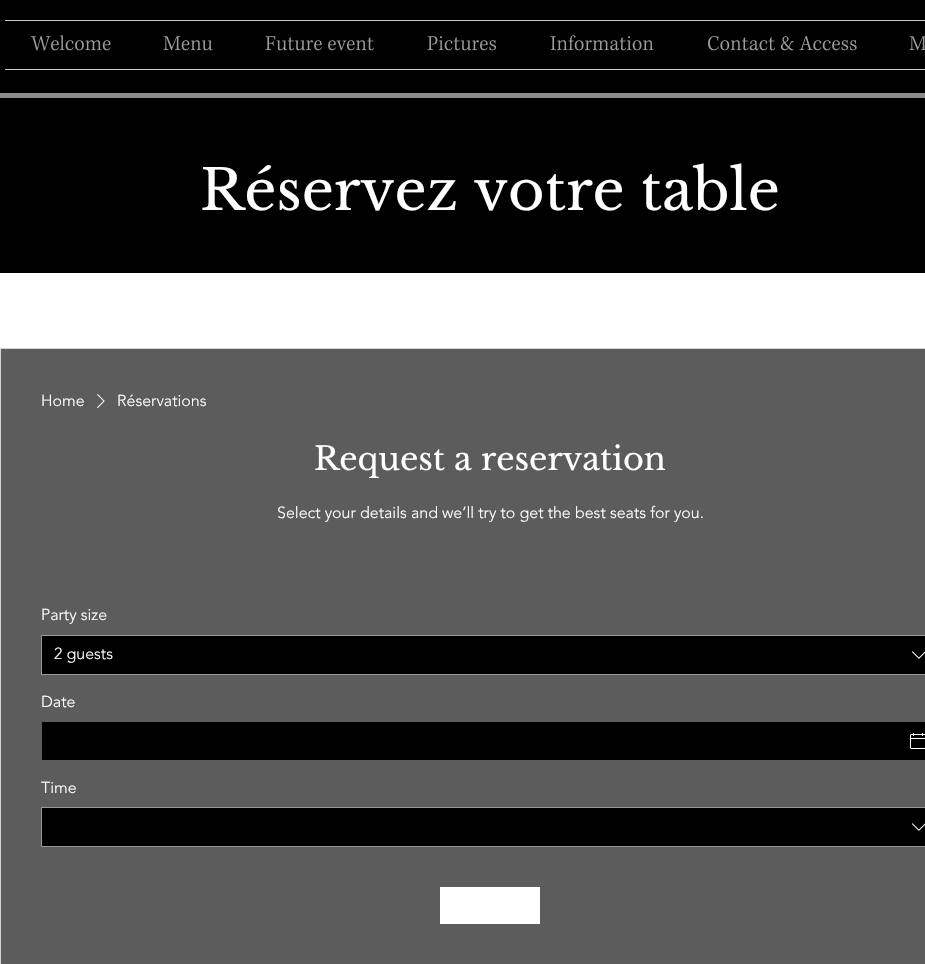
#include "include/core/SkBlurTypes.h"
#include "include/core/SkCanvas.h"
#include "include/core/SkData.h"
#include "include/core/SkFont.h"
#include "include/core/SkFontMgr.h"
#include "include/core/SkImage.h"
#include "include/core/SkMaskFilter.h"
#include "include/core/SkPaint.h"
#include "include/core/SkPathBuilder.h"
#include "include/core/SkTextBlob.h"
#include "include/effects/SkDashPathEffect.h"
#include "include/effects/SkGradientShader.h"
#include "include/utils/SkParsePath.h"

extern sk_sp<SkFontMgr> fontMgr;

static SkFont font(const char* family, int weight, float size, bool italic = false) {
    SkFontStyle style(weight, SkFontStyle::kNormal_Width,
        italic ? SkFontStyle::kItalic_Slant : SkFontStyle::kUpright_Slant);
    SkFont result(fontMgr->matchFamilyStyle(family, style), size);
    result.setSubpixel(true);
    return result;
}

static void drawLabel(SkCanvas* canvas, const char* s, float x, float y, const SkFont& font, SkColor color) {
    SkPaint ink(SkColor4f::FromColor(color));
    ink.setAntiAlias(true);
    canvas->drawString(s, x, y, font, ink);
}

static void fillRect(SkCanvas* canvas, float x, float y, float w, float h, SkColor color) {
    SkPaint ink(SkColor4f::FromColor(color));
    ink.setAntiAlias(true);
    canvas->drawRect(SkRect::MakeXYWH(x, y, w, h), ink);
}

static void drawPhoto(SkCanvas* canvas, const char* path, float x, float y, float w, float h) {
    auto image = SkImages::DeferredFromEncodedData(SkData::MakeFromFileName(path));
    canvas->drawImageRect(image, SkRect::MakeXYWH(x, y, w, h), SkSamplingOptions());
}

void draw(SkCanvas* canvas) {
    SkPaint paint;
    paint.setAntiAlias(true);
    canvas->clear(0xFFFFFFFF);
    fillRect(canvas, 0, 0, 925, 93, 0xFF000000);
    fillRect(canvas, 0, 93, 925, 5, 0xFF8C8C8C);
    fillRect(canvas, 5, 20, 920, 1, 0xFFCACACA);
    fillRect(canvas, 5, 69, 920, 1, 0xFFCACACA);
    drawPhoto(canvas, "assets/img1.png", 30, 35, 81, 16);
    drawPhoto(canvas, "assets/img2.png", 163, 36, 50, 15);
    drawPhoto(canvas, "assets/img3.png", 265, 36, 109, 15);
    drawPhoto(canvas, "assets/img4.png", 427, 36, 70, 15);
    drawPhoto(canvas, "assets/img5.png", 550, 35, 104, 16);
    drawPhoto(canvas, "assets/img6.png", 708, 36, 149, 15);
    drawPhoto(canvas, "assets/img7.png", 909, 36, 16, 15);
    fillRect(canvas, 0, 98, 925, 175, 0xFF000000);
    SkFont font1 = font("Libre Baskerville", 400, 56);
    drawLabel(canvas, "Réservez votre table", 200, 210, font1, 0xFFFFFFFF);
    paint.setColor(0xFF5C5C5C);
    canvas->drawRect(SkRect::MakeXYWH(0.5f, 348.5f, 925, 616), paint);
    paint.setStroke(true);
    paint.setStrokeWidth(1);
    paint.setColor(0xFFD5D5D5);
    canvas->drawRect(SkRect::MakeXYWH(0.5f, 348.5f, 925, 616), paint);
    SkFont font2 = font("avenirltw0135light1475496", 300, 16);
    drawLabel(canvas, "Home", 41, 406, font2, 0xFFFFFFFF);
    drawPhoto(canvas, "assets/img8.png", 97, 394, 8, 14);
    drawLabel(canvas, "Réservations", 117, 406, font2, 0xFFFFFFFF);
    SkFont font3 = font("Libre Baskerville", 400, 32);
    drawLabel(canvas, "Request a reservation", 314, 470, font3, 0xFFFFFFFF);
    drawLabel(canvas, "Select your details and we’ll try to get the best seats for you.", 277, 518, font2, 0xFFFFFFFF);
    drawLabel(canvas, "Party size", 41, 620, font2, 0xFFFFFFFF);
    paint.setStroke(false);
    paint.setColor(0xFF000000);
    canvas->drawRect(SkRect::MakeXYWH(41.5f, 635.5f, 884, 39), paint);
    paint.setStroke(true);
    paint.setColor(0xFF999999);
    canvas->drawRect(SkRect::MakeXYWH(41.5f, 635.5f, 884, 39), paint);
    drawLabel(canvas, "2 guests", 54, 659, font2, 0xFFFFFFFF);
    drawPhoto(canvas, "assets/img9.png", 911, 651, 14, 8);
    drawLabel(canvas, "Date", 41, 707, font2, 0xFFFFFFFF);
    fillRect(canvas, 42, 722, 883, 38, 0xFF000000);
    drawPhoto(canvas, "assets/img10.png", 910, 733, 15, 16);
    drawLabel(canvas, "Time", 41, 793, font2, 0xFFFFFFFF);
    paint.setStroke(false);
    paint.setColor(0xFF000000);
    canvas->drawRect(SkRect::MakeXYWH(41.5f, 807.5f, 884, 39), paint);
    paint.setStroke(true);
    paint.setColor(0xFF999999);
    canvas->drawRect(SkRect::MakeXYWH(41.5f, 807.5f, 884, 39), paint);
    drawPhoto(canvas, "assets/img9.png", 911, 823, 14, 8);
    fillRect(canvas, 440, 887, 100, 37, 0xFFFFFFFF);
}
